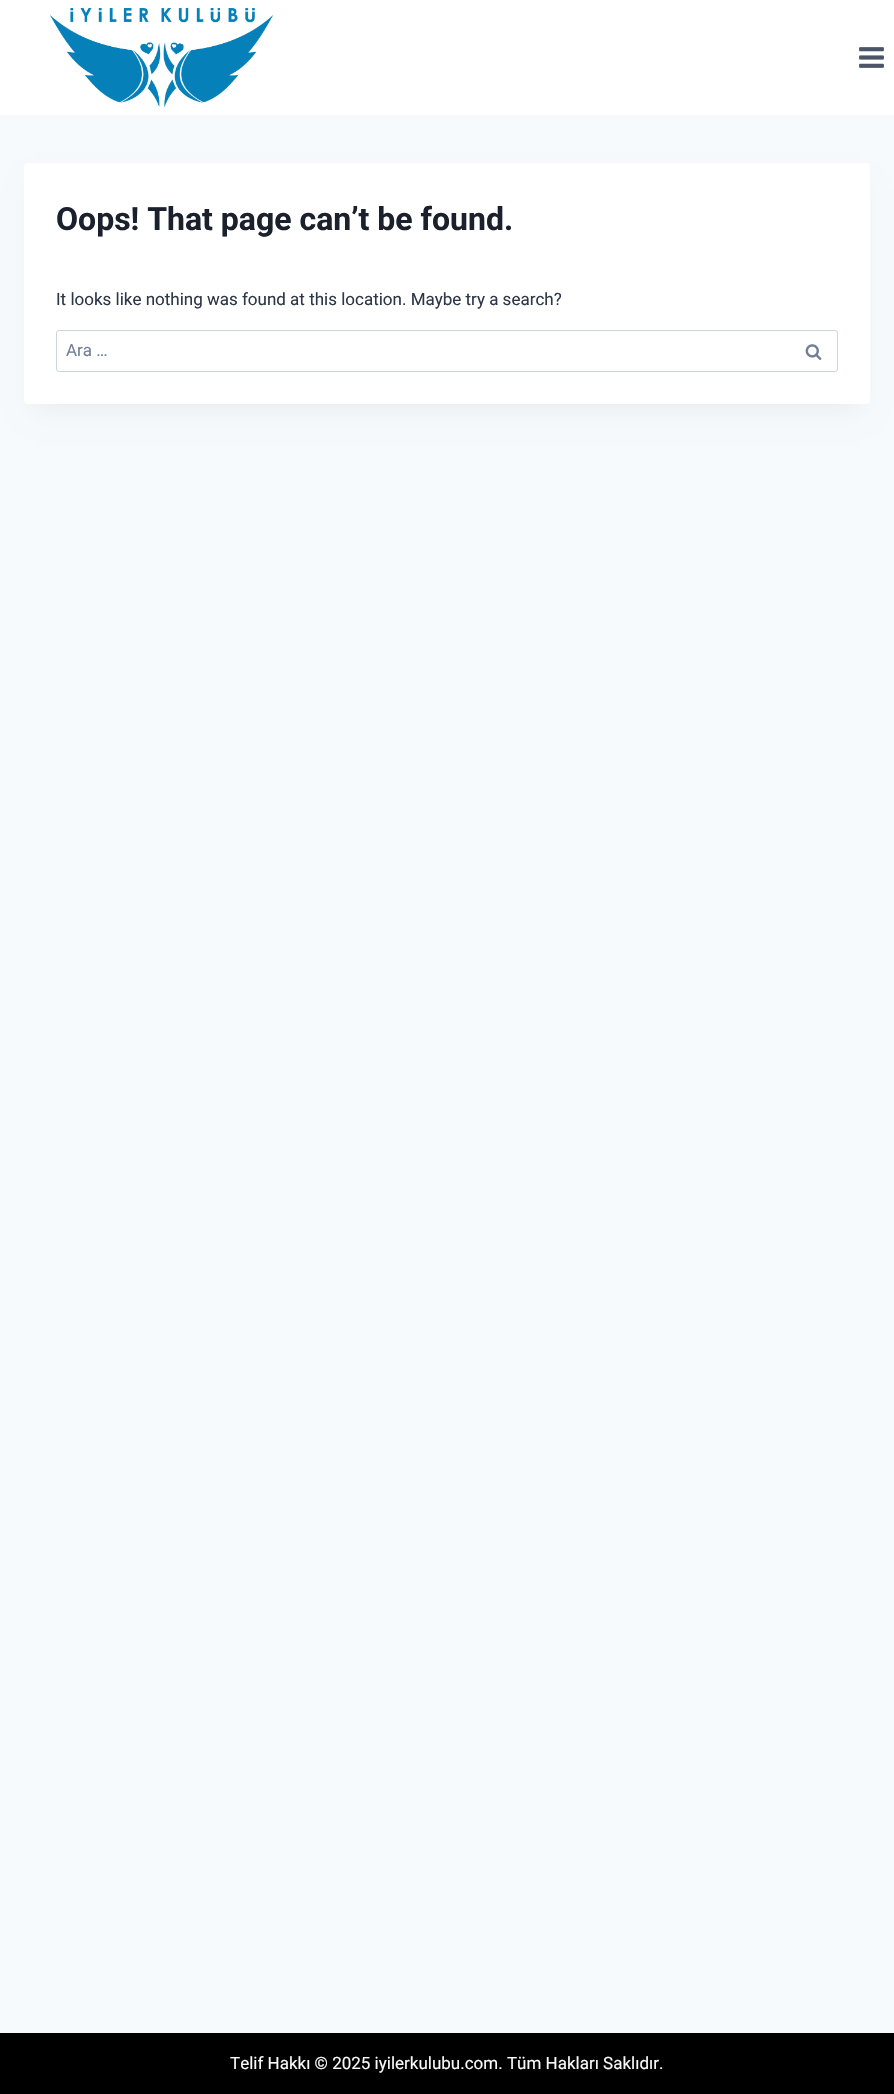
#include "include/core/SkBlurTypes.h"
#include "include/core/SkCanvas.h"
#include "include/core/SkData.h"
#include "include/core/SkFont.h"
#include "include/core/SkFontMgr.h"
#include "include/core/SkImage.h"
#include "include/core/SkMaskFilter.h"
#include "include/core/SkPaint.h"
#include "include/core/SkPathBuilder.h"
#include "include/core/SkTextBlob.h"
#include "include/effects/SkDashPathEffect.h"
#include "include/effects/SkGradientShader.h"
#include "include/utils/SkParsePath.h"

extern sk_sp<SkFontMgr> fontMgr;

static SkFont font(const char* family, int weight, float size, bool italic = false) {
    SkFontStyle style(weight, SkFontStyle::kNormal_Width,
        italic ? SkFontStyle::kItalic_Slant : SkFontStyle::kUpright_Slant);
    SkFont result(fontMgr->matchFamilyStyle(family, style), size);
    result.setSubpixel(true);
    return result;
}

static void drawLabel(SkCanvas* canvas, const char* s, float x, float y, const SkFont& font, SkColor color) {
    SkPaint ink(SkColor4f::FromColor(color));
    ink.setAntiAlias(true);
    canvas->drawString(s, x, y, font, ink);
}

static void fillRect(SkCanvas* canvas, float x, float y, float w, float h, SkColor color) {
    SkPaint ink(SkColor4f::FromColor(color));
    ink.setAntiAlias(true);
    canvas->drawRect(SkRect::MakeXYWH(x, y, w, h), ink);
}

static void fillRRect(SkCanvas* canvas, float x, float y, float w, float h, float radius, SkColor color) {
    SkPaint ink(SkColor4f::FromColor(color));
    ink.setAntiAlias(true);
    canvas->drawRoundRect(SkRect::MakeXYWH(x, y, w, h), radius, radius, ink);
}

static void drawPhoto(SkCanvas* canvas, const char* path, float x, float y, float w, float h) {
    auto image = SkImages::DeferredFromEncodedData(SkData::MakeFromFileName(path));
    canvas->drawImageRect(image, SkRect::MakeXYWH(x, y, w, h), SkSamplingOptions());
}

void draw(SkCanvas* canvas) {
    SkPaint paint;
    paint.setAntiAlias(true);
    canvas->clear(0xFFF7FAFC);
    fillRect(canvas, 0, 0, 894, 115, 0xFFFFFFFF);
    drawPhoto(canvas, "assets/img1.png", 50, 8, 223, 99);
    drawPhoto(canvas, "assets/img2.png", 859, 47, 25, 21);
    paint.setColor(0x0D000000);
    paint.setMaskFilter(SkMaskFilter::MakeBlur(kNormal_SkBlurStyle, 12.5f));
    canvas->drawRect(SkRect::MakeXYWH(34, 188, 826, 221), paint);
    paint.setMaskFilter(nullptr);
    fillRRect(canvas, 24, 163, 846, 241, 4, 0xFFFFFFFF);
    SkFont font1 = font("Roboto", 700, 32);
    drawLabel(canvas, "Oops! That page can’t be found.", 56, 230, font1, 0xFF1A202C);
    SkFont font2 = font("Roboto", 400, 17);
    drawLabel(canvas, "It looks like nothing was found at this location. Maybe try a search?", 56, 305, font2, 0xFF2D3748);
    paint.setStroke(true);
    paint.setStrokeWidth(1);
    paint.setColor(0xFFCBD5E0);
    canvas->drawRoundRect(SkRect::MakeXYWH(56.5f, 330.5f, 781, 41), 2.5f, 2.5f, paint);
    drawLabel(canvas, "Ara …", 66, 356, font2, 0xFF718096);
    drawPhoto(canvas, "assets/img3.png", 805, 344, 17, 16);
    fillRect(canvas, 0, 2033, 894, 61, 0xFF000000);
    drawLabel(canvas, "Telif Hakkı © 2025 iyilerkulubu.com. Tüm Hakları Saklıdır.", 230, 2069, font2, 0xFFF9F9F9);
}
